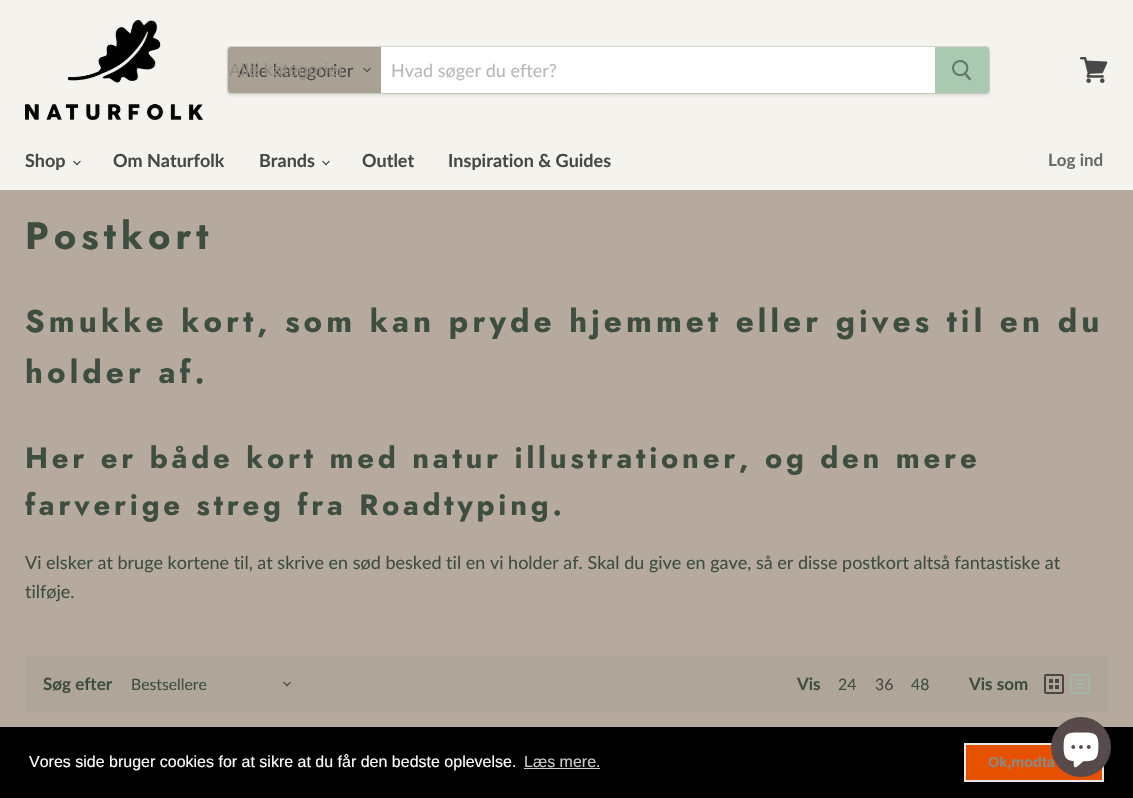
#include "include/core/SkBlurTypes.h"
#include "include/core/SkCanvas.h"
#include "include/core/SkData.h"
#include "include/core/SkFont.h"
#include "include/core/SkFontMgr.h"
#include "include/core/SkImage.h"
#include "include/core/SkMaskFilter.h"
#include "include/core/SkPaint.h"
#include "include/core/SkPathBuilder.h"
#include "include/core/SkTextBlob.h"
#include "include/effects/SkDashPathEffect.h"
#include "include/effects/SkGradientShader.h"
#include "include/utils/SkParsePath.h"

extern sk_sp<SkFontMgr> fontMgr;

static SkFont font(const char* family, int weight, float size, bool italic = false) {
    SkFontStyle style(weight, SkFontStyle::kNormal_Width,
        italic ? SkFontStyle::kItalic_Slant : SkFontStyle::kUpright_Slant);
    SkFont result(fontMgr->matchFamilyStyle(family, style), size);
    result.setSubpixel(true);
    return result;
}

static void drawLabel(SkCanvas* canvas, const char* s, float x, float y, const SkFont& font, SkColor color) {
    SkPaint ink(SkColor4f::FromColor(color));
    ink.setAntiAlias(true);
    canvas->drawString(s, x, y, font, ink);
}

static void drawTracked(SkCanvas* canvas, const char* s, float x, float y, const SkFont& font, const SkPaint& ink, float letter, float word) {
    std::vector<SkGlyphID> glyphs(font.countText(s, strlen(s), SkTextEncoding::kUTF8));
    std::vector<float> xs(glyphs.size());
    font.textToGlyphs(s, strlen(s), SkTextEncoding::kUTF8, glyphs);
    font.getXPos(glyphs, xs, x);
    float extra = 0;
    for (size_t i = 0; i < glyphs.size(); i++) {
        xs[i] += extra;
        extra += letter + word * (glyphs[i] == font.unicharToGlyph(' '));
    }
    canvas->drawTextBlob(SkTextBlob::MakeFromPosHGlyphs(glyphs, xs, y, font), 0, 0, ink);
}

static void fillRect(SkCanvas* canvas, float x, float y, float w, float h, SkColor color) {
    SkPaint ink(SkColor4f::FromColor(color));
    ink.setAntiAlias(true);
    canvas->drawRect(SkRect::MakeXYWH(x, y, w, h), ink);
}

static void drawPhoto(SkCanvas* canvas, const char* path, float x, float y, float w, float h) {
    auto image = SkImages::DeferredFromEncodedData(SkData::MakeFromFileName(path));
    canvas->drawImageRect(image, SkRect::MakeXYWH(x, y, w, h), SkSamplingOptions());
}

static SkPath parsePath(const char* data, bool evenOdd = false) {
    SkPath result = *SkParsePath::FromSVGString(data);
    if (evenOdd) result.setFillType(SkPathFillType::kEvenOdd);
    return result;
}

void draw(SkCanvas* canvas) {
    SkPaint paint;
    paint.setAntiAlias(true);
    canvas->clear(0xFFB5AA9D);
    fillRect(canvas, 0, 0, 1133, 190, 0xFFF4F3EE);
    drawPhoto(canvas, "assets/img1.png", 25, 20, 178, 100);
    paint.setColor(0x1C5B554F);
    paint.setMaskFilter(SkMaskFilter::MakeBlur(kNormal_SkBlurStyle, 1.5f));
    canvas->drawRoundRect(SkRect::MakeXYWH(227, 48, 763, 48), 4, 4, paint);
    paint.setMaskFilter(nullptr);
    paint.setStroke(true);
    paint.setStrokeWidth(1);
    paint.setColor(0x335B554F);
    canvas->drawRoundRect(SkRect::MakeXYWH(227.5f, 46.5f, 762, 47), 3.5f, 3.5f, paint);
    paint.setStroke(false);
    paint.setColor(0xFFA9A194);
    canvas->drawPath(parsePath("M231 47H381V93H231C229.5 93 228 91.5 228 90V50C228 48.5 229.5 47 231 47Z"), paint);
    SkFont font1 = font("Lato", 400, 18);
    drawLabel(canvas, "Alle kategorier", 238, 77, font1, 0xFF484848);
    SkFont font2 = font("Liberation Sans", 400, 18);
    drawLabel(canvas, "Alle kategorier", 229, 76, font2, 0xFF918B81);
    drawPhoto(canvas, "assets/img2.png", 363, 67, 8, 6);
    fillRect(canvas, 381, 47, 554, 46, 0xFFFFFFFF);
    drawLabel(canvas, "Hvad søger du efter?", 391, 77, font1, 0xFFB8B8B8);
    paint.setColor(0xFFA9C9B1);
    canvas->drawPath(parsePath("M935.5 47.5H986C987.5 47.5 988.5 48.5 988.5 50V90C988.5 91.5 987.5 92.5 986 92.5H935.5Z"), paint);
    paint.setStroke(true);
    canvas->drawPath(parsePath("M935.5 47.5H986C987.5 47.5 988.5 48.5 988.5 50V90C988.5 91.5 987.5 92.5 986 92.5H935.5Z"), paint);
    drawPhoto(canvas, "assets/img3.png", 952, 60, 20, 21);
    drawPhoto(canvas, "assets/img4.png", 1080, 57, 28, 26);
    SkFont font3 = font("Lato", 700, 18);
    drawLabel(canvas, "Shop", 25, 167, font3, 0xFF484848);
    drawPhoto(canvas, "assets/img5.png", 73, 160, 8, 6);
    drawLabel(canvas, "Om Naturfolk", 113, 167, font3, 0xFF484848);
    drawLabel(canvas, "Brands", 259, 167, font3, 0xFF484848);
    drawPhoto(canvas, "assets/img5.png", 322, 160, 8, 6);
    drawLabel(canvas, "Outlet", 362, 167, font3, 0xFF484848);
    drawLabel(canvas, "Inspiration & Guides", 448, 167, font3, 0xFF484848);
    SkFont font4 = font("Lato", 700, 17);
    drawLabel(canvas, "Log ind", 1048, 166, font4, 0xFF6A6A69);
    SkFont font5 = font("Jost", 700, 38.25f);
    paint.setStroke(false);
    paint.setColor(0xFF3D4E41);
    drawTracked(canvas, "Postkort", 25, 249, font5, paint, 5, 0);
    SkFont font6 = font("Jost", 700, 31.5f);
    drawTracked(canvas, "Smukke kort, som kan pryde hjemmet eller gives til en du", 25, 332, font6, paint, 4.1f, 0);
    drawTracked(canvas, "holder af.", 25, 383, font6, paint, 4.1f, 0);
    SkFont font7 = font("Jost", 700, 29.25f);
    drawTracked(canvas, "Her er både kort med natur illustrationer, og den mere", 25, 468, font7, paint, 3.8f, 0);
    drawTracked(canvas, "farverige streg fra Roadtyping.", 25, 515, font7, paint, 3.8f, 0);
    drawLabel(canvas, "Vi elsker at bruge kortene til, at skrive en sød besked til en vi holder af. Skal du give en gave, så er disse postkort altså fantastiske at", 25, 569, font1, 0xFF3D4E41);
    drawLabel(canvas, "tilføje.", 25, 598, font1, 0xFF3D4E41);
    fillRect(canvas, 25, 656, 1083, 56, 0xFFAFA598);
    drawLabel(canvas, "Søg efter", 43, 690, font4, 0xFF3D4E41);
    SkFont font8 = font("Lato", 400, 15.75f);
    drawLabel(canvas, "Bestsellere", 131, 690, font8, 0xFF3D4E41);
    drawPhoto(canvas, "assets/img6.png", 283, 681, 8, 6);
    drawLabel(canvas, "Vis", 797, 690, font4, 0xFF3D4E41);
    drawLabel(canvas, "24", 838, 690, font8, 0xFF3D4E41);
    drawLabel(canvas, "36", 875, 690, font8, 0xFF484848);
    drawLabel(canvas, "48", 911, 690, font8, 0xFF3D4E41);
    drawLabel(canvas, "Vis som", 969, 690, font4, 0xFF3D4E41);
    drawPhoto(canvas, "assets/img7.png", 1044, 674, 20, 20);
    drawPhoto(canvas, "assets/img8.png", 1070, 674, 20, 20);
    fillRect(canvas, 0, 727, 1133, 71, 0xFF000000);
    SkFont font9 = font("Liberation Sans", 400, 16);
    drawLabel(canvas, "Vores side bruger cookies for at sikre at du får den bedste oplevelse.", 29, 767, font9, 0xFFFFFFFF);
    drawLabel(canvas, "Læs mere.", 524, 767, font9, 0xFFCCCCCC);
    fillRect(canvas, 524, 768, 76, 1, 0xFFCCCCCC);
    paint.setColor(0xFFE65100);
    canvas->drawRect(SkRect::MakeXYWH(965, 744, 138, 37), paint);
    paint.setStroke(true);
    paint.setStrokeWidth(2);
    paint.setColor(0xFFE8E8E2);
    canvas->drawRect(SkRect::MakeXYWH(965, 744, 138, 37), paint);
    SkFont font10 = font("Liberation Sans", 700, 14.5f);
    drawLabel(canvas, "Ok,modta", 988, 767, font10, 0xFF898989);
    paint.setStroke(false);
    paint.setColor(0xFF584A4B);
    canvas->drawCircle(1081, 747, 30, paint);
    drawPhoto(canvas, "assets/img9.png", 1063, 732, 36, 36);
}
